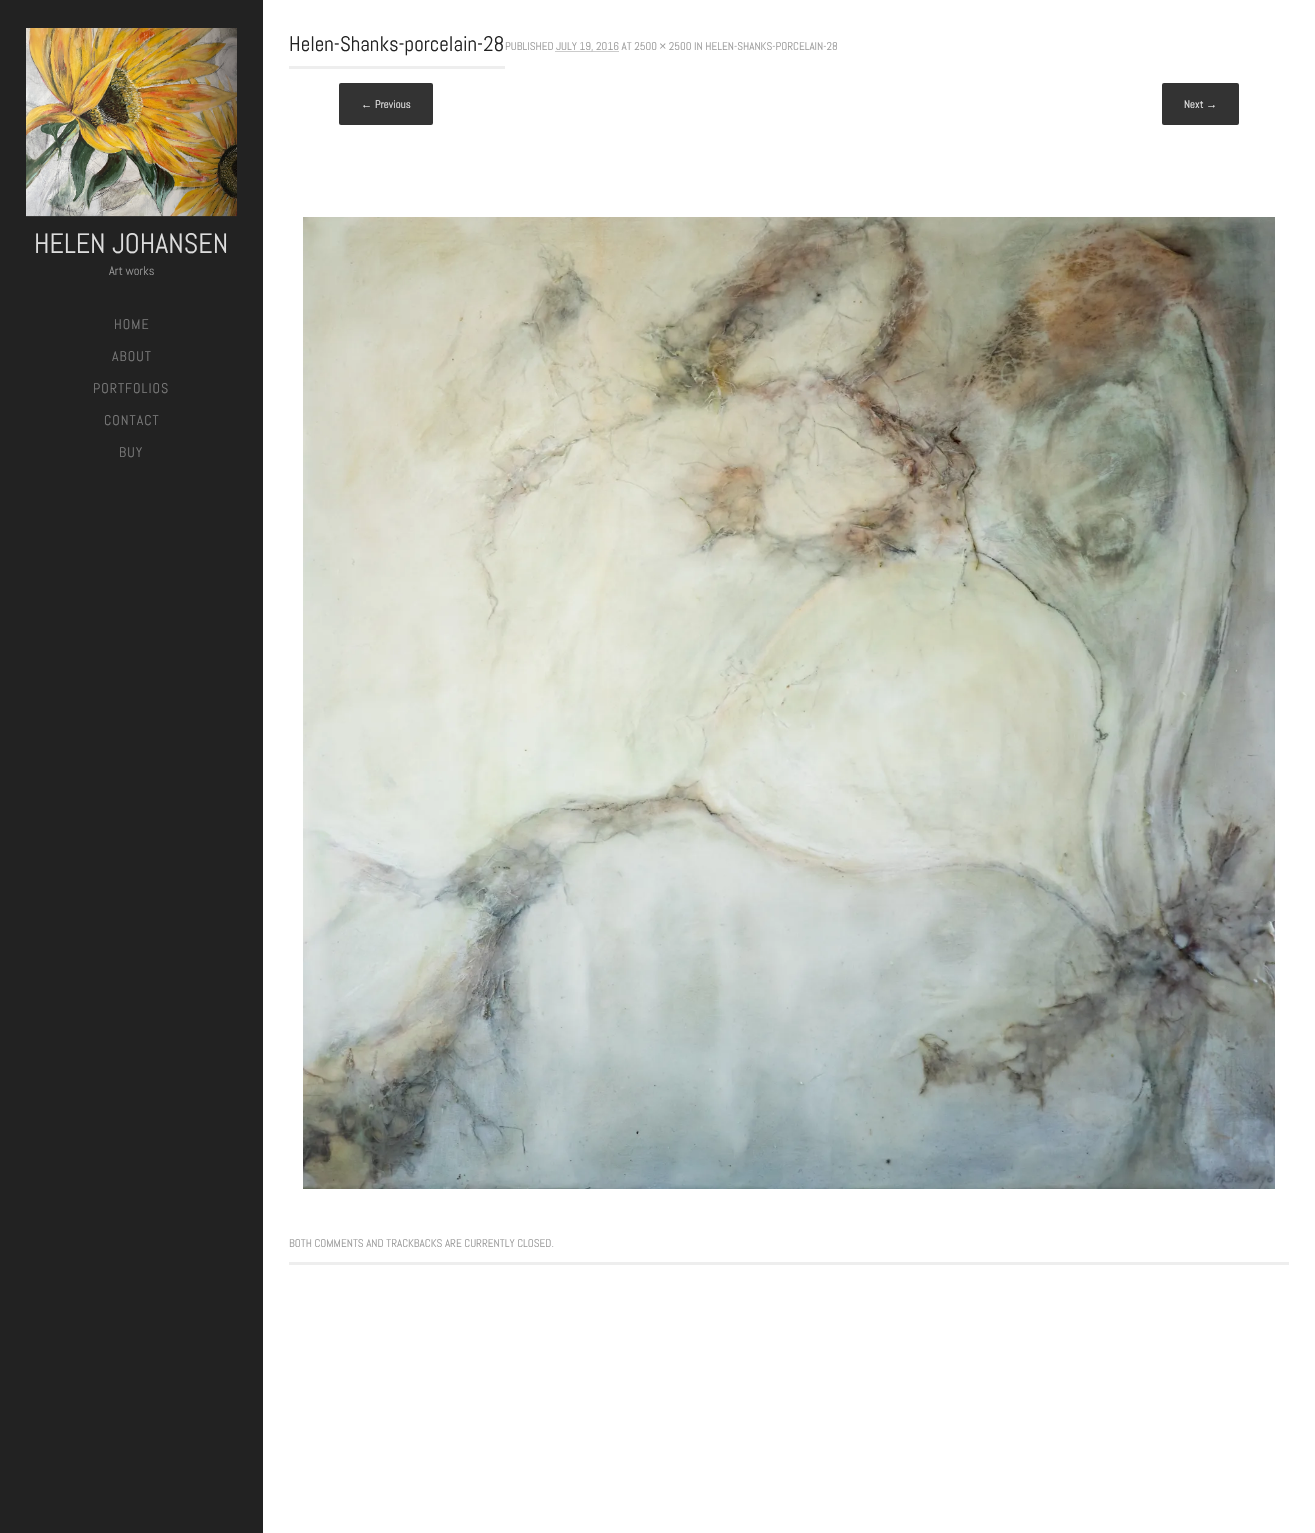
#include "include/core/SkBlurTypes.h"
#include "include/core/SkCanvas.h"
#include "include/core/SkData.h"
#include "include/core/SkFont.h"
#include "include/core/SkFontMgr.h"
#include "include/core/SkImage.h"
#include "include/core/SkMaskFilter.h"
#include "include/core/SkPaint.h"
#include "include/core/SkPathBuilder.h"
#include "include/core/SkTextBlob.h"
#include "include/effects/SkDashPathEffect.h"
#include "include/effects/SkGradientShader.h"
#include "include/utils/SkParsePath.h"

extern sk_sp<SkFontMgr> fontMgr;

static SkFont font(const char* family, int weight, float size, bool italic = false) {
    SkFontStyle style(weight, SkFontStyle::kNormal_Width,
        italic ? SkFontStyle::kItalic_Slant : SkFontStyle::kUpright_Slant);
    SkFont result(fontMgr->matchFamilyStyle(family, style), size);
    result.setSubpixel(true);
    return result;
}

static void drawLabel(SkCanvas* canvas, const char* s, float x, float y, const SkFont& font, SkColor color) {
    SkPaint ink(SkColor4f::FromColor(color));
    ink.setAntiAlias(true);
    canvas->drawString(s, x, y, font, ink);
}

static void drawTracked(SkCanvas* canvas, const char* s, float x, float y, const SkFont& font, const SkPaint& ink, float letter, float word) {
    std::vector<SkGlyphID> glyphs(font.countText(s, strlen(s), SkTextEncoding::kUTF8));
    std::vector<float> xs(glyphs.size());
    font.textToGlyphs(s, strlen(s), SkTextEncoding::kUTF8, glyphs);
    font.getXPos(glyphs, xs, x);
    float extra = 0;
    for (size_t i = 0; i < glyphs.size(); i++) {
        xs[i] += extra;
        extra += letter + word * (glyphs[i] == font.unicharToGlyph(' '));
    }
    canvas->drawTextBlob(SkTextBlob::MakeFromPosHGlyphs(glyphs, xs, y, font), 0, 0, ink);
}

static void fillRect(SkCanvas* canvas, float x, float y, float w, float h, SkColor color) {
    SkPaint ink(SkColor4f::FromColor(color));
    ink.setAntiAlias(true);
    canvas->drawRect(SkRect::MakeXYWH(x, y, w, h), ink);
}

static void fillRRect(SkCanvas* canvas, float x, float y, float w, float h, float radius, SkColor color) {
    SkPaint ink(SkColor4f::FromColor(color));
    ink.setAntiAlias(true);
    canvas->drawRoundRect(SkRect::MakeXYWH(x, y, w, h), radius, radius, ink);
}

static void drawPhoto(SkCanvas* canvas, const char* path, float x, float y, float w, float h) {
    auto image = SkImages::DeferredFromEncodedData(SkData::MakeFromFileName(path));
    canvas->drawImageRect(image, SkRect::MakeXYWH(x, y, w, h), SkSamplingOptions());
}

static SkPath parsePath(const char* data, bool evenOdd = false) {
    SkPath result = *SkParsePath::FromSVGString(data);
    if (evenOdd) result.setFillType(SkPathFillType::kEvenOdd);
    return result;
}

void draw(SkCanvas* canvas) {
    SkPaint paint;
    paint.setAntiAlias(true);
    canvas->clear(0xFFFFFFFF);
    fillRect(canvas, 0, 0, 263, 1533, 0xFF222222);
    drawPhoto(canvas, "assets/img1.png", 26, 28, 211, 189);
    SkFont font1 = font("Abel", 400, 28);
    drawLabel(canvas, "HELEN JOHANSEN", 34, 253, font1, 0xFFDDDDDD);
    SkFont font2 = font("Abel", 400, 12.5f);
    drawLabel(canvas, "Art works", 109, 275, font2, 0xFF999999);
    SkFont font3 = font("Abel", 400, 14);
    paint.setColor(0xFF7A7A7A);
    drawTracked(canvas, "HOME", 114, 329, font3, paint, 1, 0);
    drawTracked(canvas, "ABOUT", 112, 361, font3, paint, 1, 0);
    drawTracked(canvas, "PORTFOLIOS", 93, 393, font3, paint, 1, 0);
    drawTracked(canvas, "CONTACT", 104, 425, font3, paint, 1, 0);
    drawTracked(canvas, "BUY", 119, 457, font3, paint, 1, 0);
    fillRect(canvas, 289, 1262, 1000, 3, 0xFFEEEEEE);
    fillRect(canvas, 289, 66, 216, 3, 0xFFEEEEEE);
    SkFont font4 = font("Abel", 400, 21);
    drawLabel(canvas, "Helen-Shanks-porcelain-28", 289, 51, font4, 0xFF222222);
    SkFont font5 = font("Abel", 400, 11.2f);
    drawLabel(canvas, "PUBLISHED", 505, 50, font5, 0xFF999999);
    paint.setStroke(true);
    paint.setStrokeWidth(1);
    paint.setColor(0xFF999999);
    paint.setPathEffect(SkDashPathEffect::Make({{1, 1}}, 0));
    canvas->drawPath(parsePath("M555.5 51.5H618.5"), paint);
    paint.setPathEffect(nullptr);
    drawLabel(canvas, "JULY 19, 2016 AT 2500 × 2500 IN HELEN-SHANKS-PORCELAIN-28", 556, 50, font5, 0xFF999999);
    fillRRect(canvas, 339, 83, 94, 42, 2, 0xFF333333);
    SkFont font6 = font("Liberation Serif", 400, 11);
    drawLabel(canvas, "←", 361, 108, font6, 0xFFEEEEEE);
    SkFont font7 = font("Abel", 400, 11);
    drawLabel(canvas, "Previous", 375, 108, font7, 0xFFEEEEEE);
    fillRRect(canvas, 1162, 83, 77, 42, 2, 0xFF333333);
    drawLabel(canvas, "Next", 1184, 108, font7, 0xFFEEEEEE);
    drawLabel(canvas, "→", 1206, 108, font6, 0xFFEEEEEE);
    drawPhoto(canvas, "assets/img2.png", 303, 217, 972, 972);
    drawLabel(canvas, "BOTH COMMENTS AND TRACKBACKS ARE CURRENTLY CLOSED.", 289, 1247, font5, 0xFF999999);
}
